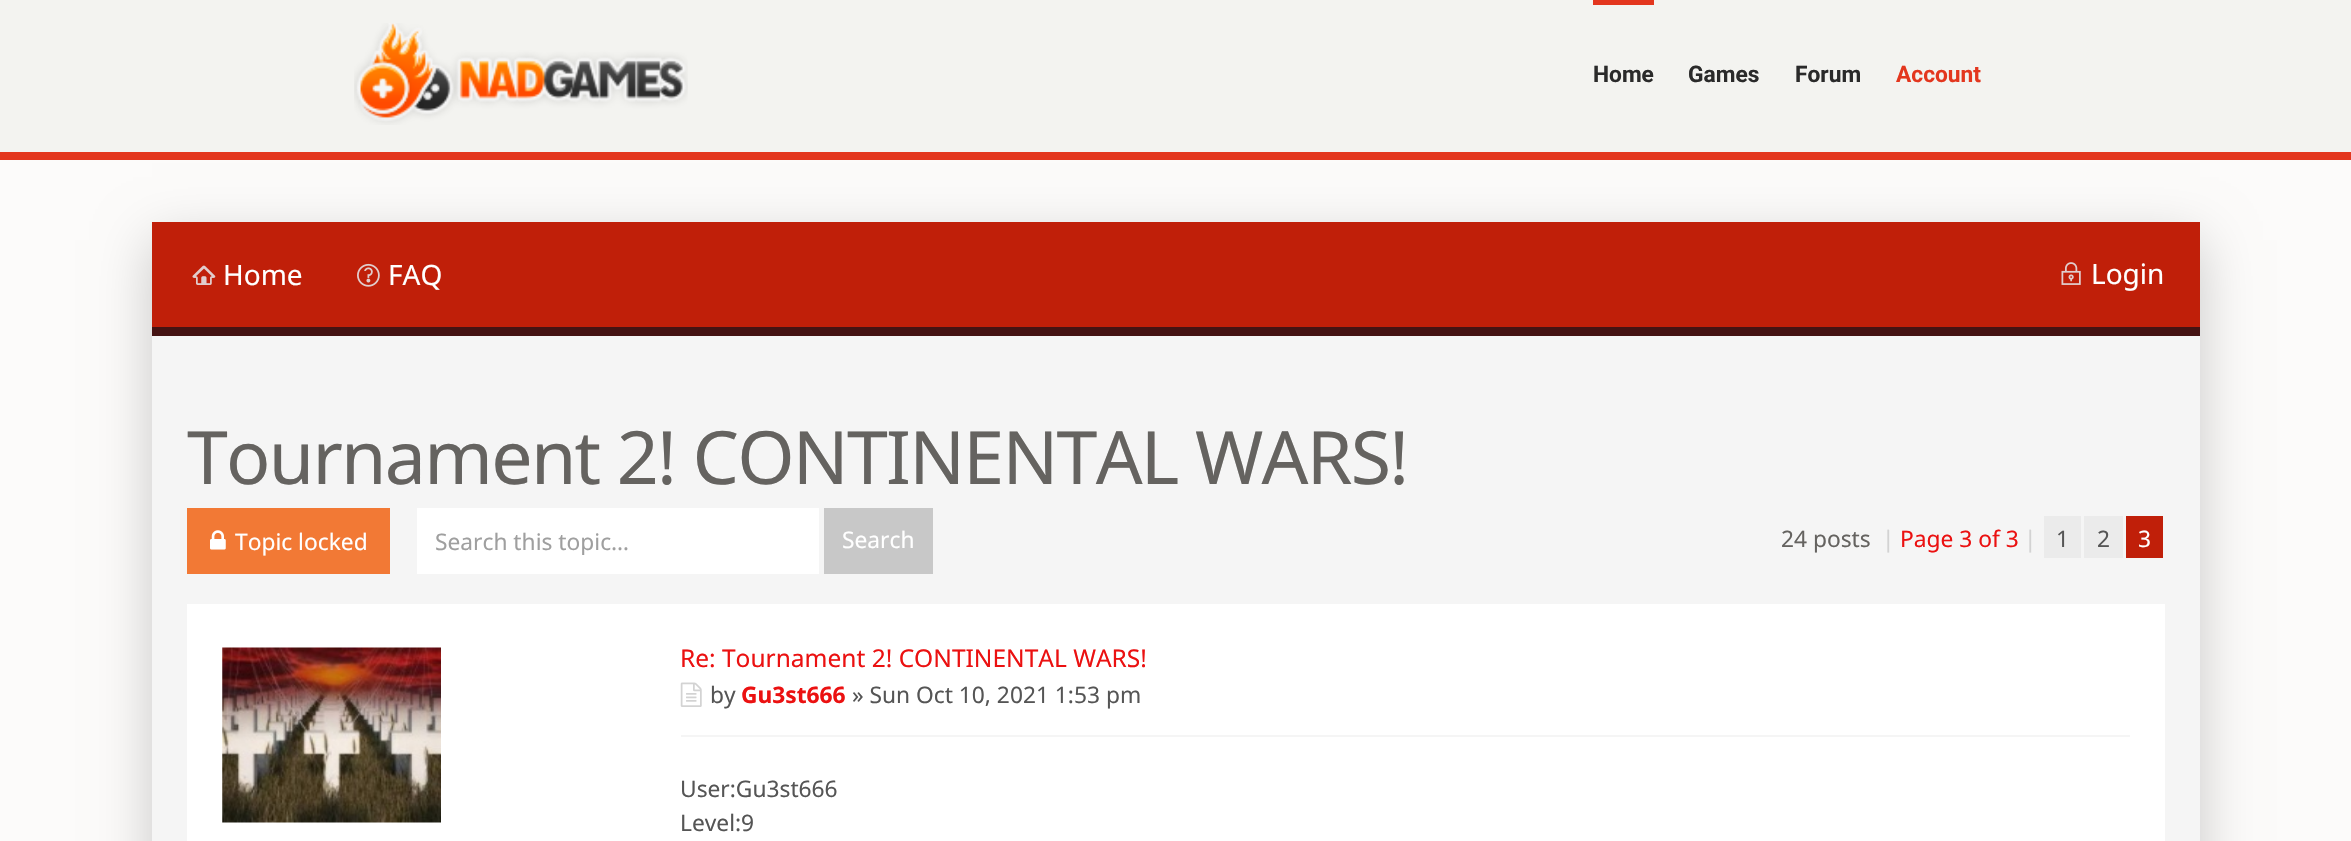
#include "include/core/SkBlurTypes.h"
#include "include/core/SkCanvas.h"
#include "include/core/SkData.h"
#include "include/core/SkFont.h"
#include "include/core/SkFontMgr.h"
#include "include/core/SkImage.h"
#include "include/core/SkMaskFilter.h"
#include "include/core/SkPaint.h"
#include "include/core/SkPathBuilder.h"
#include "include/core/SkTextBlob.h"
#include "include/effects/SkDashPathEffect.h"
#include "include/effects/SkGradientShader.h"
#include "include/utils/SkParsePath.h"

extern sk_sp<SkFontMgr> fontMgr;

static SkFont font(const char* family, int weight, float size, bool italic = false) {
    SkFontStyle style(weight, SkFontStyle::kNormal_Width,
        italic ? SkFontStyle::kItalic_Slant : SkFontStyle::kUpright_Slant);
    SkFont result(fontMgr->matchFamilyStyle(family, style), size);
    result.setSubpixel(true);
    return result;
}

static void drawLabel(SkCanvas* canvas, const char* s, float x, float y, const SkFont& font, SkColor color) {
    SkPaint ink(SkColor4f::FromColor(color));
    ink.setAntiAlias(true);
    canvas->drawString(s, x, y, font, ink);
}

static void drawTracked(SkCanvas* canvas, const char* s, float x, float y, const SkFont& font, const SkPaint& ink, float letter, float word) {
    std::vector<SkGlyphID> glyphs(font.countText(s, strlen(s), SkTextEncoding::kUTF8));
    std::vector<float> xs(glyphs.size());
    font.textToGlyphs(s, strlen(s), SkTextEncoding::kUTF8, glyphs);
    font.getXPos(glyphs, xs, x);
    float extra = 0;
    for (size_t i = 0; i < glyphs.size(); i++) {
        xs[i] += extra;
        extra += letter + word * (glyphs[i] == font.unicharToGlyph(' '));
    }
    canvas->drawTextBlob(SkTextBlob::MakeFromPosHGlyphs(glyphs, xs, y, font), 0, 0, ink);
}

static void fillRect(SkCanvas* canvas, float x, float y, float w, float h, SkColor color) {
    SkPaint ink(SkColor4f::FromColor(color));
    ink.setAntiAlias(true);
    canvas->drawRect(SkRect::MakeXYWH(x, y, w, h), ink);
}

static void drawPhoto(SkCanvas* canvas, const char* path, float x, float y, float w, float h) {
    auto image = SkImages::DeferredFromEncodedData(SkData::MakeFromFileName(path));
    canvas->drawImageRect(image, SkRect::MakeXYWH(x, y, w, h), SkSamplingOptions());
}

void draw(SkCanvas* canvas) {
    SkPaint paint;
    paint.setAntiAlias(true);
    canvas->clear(0xFFFCFBFA);
    fillRect(canvas, 0, 0, 2351, 152, 0xFFF3F3F0);
    drawPhoto(canvas, "assets/img1.png", 354, 23, 334, 102);
    fillRect(canvas, 1593, 0, 61, 5, 0xFFE3361E);
    SkFont font1 = font("Roboto", 700, 22.75f);
    drawLabel(canvas, "Home", 1593, 82, font1, 0xFF2A2A2A);
    drawLabel(canvas, "Games", 1688, 82, font1, 0xFF2A2A2A);
    drawLabel(canvas, "Forum", 1795, 82, font1, 0xFF2A2A2A);
    drawLabel(canvas, "Account", 1896, 82, font1, 0xFFE3361E);
    fillRect(canvas, 0, 152, 2351, 8, 0xFFE3361E);
    paint.setColor(0x33000000);
    paint.setMaskFilter(SkMaskFilter::MakeBlur(kNormal_SkBlurStyle, 26));
    canvas->drawRect(SkRect::MakeXYWH(152, 240, 2048, 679), paint);
    paint.setMaskFilter(nullptr);
    fillRect(canvas, 152, 336, 2048, 505, 0xFFF5F5F5);
    fillRect(canvas, 152, 222, 2048, 105, 0xFFC01F09);
    fillRect(canvas, 152, 327, 2048, 9, 0xFF451313);
    drawPhoto(canvas, "assets/img2.png", 192, 265, 24, 20);
    SkFont font2 = font("Noto Sans", 400, 28);
    drawLabel(canvas, "Home", 223, 285, font2, 0xFFFFFFFF);
    drawPhoto(canvas, "assets/img3.png", 357, 263, 23, 24);
    drawLabel(canvas, "FAQ", 388, 285, font2, 0xFFFFFFFF);
    drawPhoto(canvas, "assets/img4.png", 2061, 262, 20, 23);
    drawLabel(canvas, "Login", 2091, 284, font2, 0xFFFFFFFF);
    SkFont font3 = font("Noto Sans", 400, 73.5f);
    paint.setColor(0xFF656360);
    drawTracked(canvas, "Tournament 2! CONTINENTAL WARS!", 187, 484, font3, paint, -1.75f, 0);
    fillRect(canvas, 187, 508, 203, 66, 0xFFF27935);
    drawPhoto(canvas, "assets/img5.png", 210, 530, 16, 20);
    SkFont font4 = font("Noto Sans", 400, 22.75f);
    drawLabel(canvas, "Topic locked", 235, 550, font4, 0xFFFFFFFF);
    fillRect(canvas, 417, 508, 402, 66, 0xFFFFFFFF);
    canvas->save();
    canvas->clipRect(SkRect::MakeXYWH(436, 527, 364, 28));
    drawLabel(canvas, "Search this topic…", 435, 550, font4, 0xFF9F9F9F);
    canvas->restore();
    fillRect(canvas, 824, 508, 109, 66, 0xFFC8C8C8);
    drawLabel(canvas, "Search", 842, 548, font4, 0xFFFFFFFF);
    drawLabel(canvas, "24 posts", 1781, 547, font4, 0xFF656360);
    drawLabel(canvas, "|", 1882, 547, font4, 0xFFD3D3D3);
    drawLabel(canvas, "Page 3 of 3", 1900, 547, font4, 0xFFEB1111);
    drawLabel(canvas, "|", 2024, 547, font4, 0xFFD3D3D3);
    fillRect(canvas, 2044, 516, 37, 42, 0xFFEBEBEB);
    drawLabel(canvas, "1", 2056, 547, font4, 0xFF555555);
    fillRect(canvas, 2084, 516, 39, 42, 0xFFEBEBEB);
    drawLabel(canvas, "2", 2097, 547, font4, 0xFF555555);
    fillRect(canvas, 2126, 516, 37, 42, 0xFFC01F09);
    drawLabel(canvas, "3", 2138, 547, font4, 0xFFFFFFFF);
    fillRect(canvas, 187, 604, 1978, 237, 0xFFFFFFFF);
    drawPhoto(canvas, "assets/img6.png", 222, 647, 219, 176);
    SkFont font5 = font("Noto Sans", 400, 24.5f);
    drawLabel(canvas, "Re: Tournament 2! CONTINENTAL WARS!", 680, 667, font5, 0xFFEB1111);
    drawPhoto(canvas, "assets/img7.png", 680, 682, 22, 25);
    drawLabel(canvas, "by", 710, 703, font4, 0xFF555555);
    SkFont font6 = font("Noto Sans", 700, 22.75f);
    drawLabel(canvas, "Gu3st666", 741, 703, font6, 0xFFEB1111);
    drawLabel(canvas, "» Sun Oct 10, 2021 1:53 pm", 852, 703, font4, 0xFF555555);
    fillRect(canvas, 681, 735, 1449, 2, 0xFFF5F5F5);
    drawLabel(canvas, "User:Gu3st666", 680, 797, font4, 0xFF555555);
    drawLabel(canvas, "Level:9", 680, 831, font4, 0xFF555555);
}
